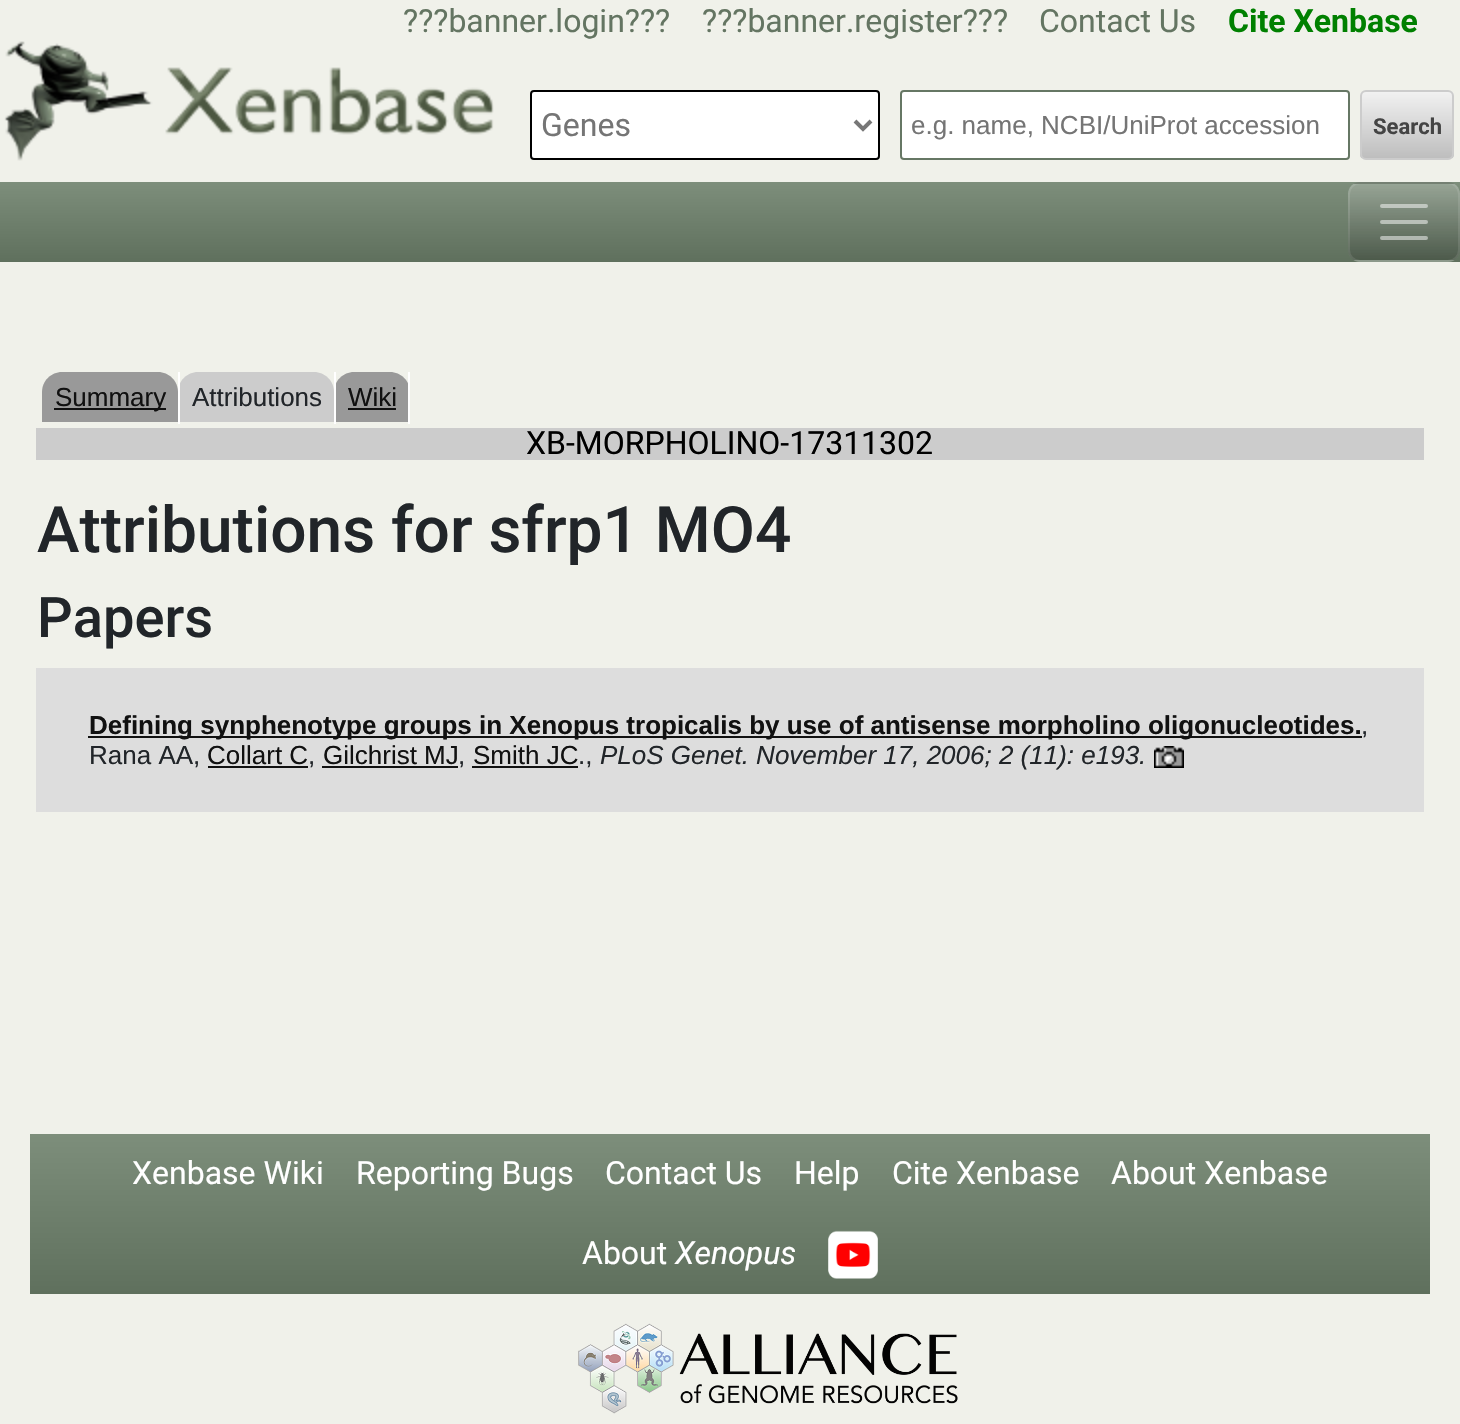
#include "include/core/SkBlurTypes.h"
#include "include/core/SkCanvas.h"
#include "include/core/SkData.h"
#include "include/core/SkFont.h"
#include "include/core/SkFontMgr.h"
#include "include/core/SkImage.h"
#include "include/core/SkMaskFilter.h"
#include "include/core/SkPaint.h"
#include "include/core/SkPathBuilder.h"
#include "include/core/SkTextBlob.h"
#include "include/effects/SkDashPathEffect.h"
#include "include/effects/SkGradientShader.h"
#include "include/utils/SkParsePath.h"

extern sk_sp<SkFontMgr> fontMgr;

static SkFont font(const char* family, int weight, float size, bool italic = false) {
    SkFontStyle style(weight, SkFontStyle::kNormal_Width,
        italic ? SkFontStyle::kItalic_Slant : SkFontStyle::kUpright_Slant);
    SkFont result(fontMgr->matchFamilyStyle(family, style), size);
    result.setSubpixel(true);
    return result;
}

static void drawLabel(SkCanvas* canvas, const char* s, float x, float y, const SkFont& font, SkColor color) {
    SkPaint ink(SkColor4f::FromColor(color));
    ink.setAntiAlias(true);
    canvas->drawString(s, x, y, font, ink);
}

static void fillRect(SkCanvas* canvas, float x, float y, float w, float h, SkColor color) {
    SkPaint ink(SkColor4f::FromColor(color));
    ink.setAntiAlias(true);
    canvas->drawRect(SkRect::MakeXYWH(x, y, w, h), ink);
}

static void drawPhoto(SkCanvas* canvas, const char* path, float x, float y, float w, float h) {
    auto image = SkImages::DeferredFromEncodedData(SkData::MakeFromFileName(path));
    canvas->drawImageRect(image, SkRect::MakeXYWH(x, y, w, h), SkSamplingOptions());
}

static SkPath parsePath(const char* data, bool evenOdd = false) {
    SkPath result = *SkParsePath::FromSVGString(data);
    if (evenOdd) result.setFillType(SkPathFillType::kEvenOdd);
    return result;
}

void draw(SkCanvas* canvas) {
    SkPaint paint;
    paint.setAntiAlias(true);
    canvas->clear(0xFFF0F1EA);
    SkFont font1 = font("Roboto", 400, 32);
    drawLabel(canvas, "?\077?banner.login?\077?", 403, 32, font1, 0xFF647562);
    drawLabel(canvas, "?\077?banner.register?\077?", 702, 32, font1, 0xFF647562);
    drawLabel(canvas, "Contact Us", 1039, 32, font1, 0xFF647562);
    SkFont font2 = font("Roboto", 700, 32);
    drawLabel(canvas, "Cite Xenbase", 1228, 32, font2, 0xFF008000);
    drawPhoto(canvas, "assets/img1.png", 4, 41, 490, 120);
    paint.setColor(0xFFFFFFFF);
    canvas->drawRoundRect(SkRect::MakeXYWH(531, 91, 348, 68), 3, 3, paint);
    paint.setStroke(true);
    paint.setStrokeWidth(2);
    paint.setColor(0xFF000000);
    canvas->drawRoundRect(SkRect::MakeXYWH(531, 91, 348, 68), 3, 3, paint);
    paint.setStrokeWidth(4);
    paint.setColor(0xFF777777);
    canvas->drawPath(parsePath("M855 121L863 129L871 121"), paint);
    drawLabel(canvas, "Genes", 541, 136, font1, 0xFF757575);
    paint.setStroke(false);
    paint.setColor(0xFFFFFFFF);
    canvas->drawRoundRect(SkRect::MakeXYWH(901, 91, 448, 68), 3, 3, paint);
    paint.setStroke(true);
    paint.setStrokeWidth(2);
    paint.setColor(0xFF667764);
    canvas->drawRoundRect(SkRect::MakeXYWH(901, 91, 448, 68), 3, 3, paint);
    SkFont font3 = font("Liberation Sans", 400, 26);
    drawLabel(canvas, "e.g. name, NCBI/UniProt accession", 911, 134, font3, 0xFF757575);
    canvas->save();
    canvas->clipPath(parsePath("M1366 90H1448C1451.5 90 1454 92.5 1454 96V154C1454 157.5 1451.5 160 1448 160H1366C1362.5 160 1360 157.5 1360 154V96C1360 92.5 1362.5 90 1366 90Z"), true);
    paint.setStroke(false);
    {
        const SkColor colors[] = {0xFFF1F1F1, 0xFFBEBEBE};
        const float stops[] = {0, 1};
        const SkPoint ends[] = {{1407, 92}, {1407, 158}};
        paint.setShader(SkGradientShader::MakeLinear(ends, colors, stops, 2, SkTileMode::kClamp));
        paint.setAlpha(255);
    }
    canvas->drawRect(SkRect::MakeXYWH(1360, 92, 94, 66), paint);
    canvas->restore();
    paint.setStroke(true);
    paint.setShader(nullptr);
    paint.setColor(0xFFCCCCCC);
    canvas->drawRoundRect(SkRect::MakeXYWH(1361, 91, 92, 68), 5, 5, paint);
    SkFont font4 = font("Roboto", 700, 22);
    drawLabel(canvas, "Search", 1373, 134, font4, 0xFF444444);
    paint.setStroke(false);
    {
        const SkColor colors[] = {0xFF7D8E7B, 0xFF5F705D};
        const float stops[] = {0, 1};
        const SkPoint ends[] = {{730, 182}, {730, 262}};
        paint.setShader(SkGradientShader::MakeLinear(ends, colors, stops, 2, SkTileMode::kClamp));
        paint.setAlpha(255);
    }
    canvas->drawRect(SkRect::MakeXYWH(0, 182, 1460, 80), paint);
    canvas->save();
    canvas->clipPath(parsePath("M1360 182H1448C1454.5 182 1460 187.5 1460 194V250C1460 256.5 1454.5 262 1448 262H1360C1353.5 262 1348 256.5 1348 250V194C1348 187.5 1353.5 182 1360 182Z"), true);
    {
        const SkColor colors[] = {0xFF97A495, 0xFF647162};
        const float stops[] = {0, 1};
        const SkPoint ends[] = {{1404, 108}, {1404, 184}};
        paint.setShader(SkGradientShader::MakeLinear(ends, colors, stops, 2, SkTileMode::kClamp));
        paint.setAlpha(255);
    }
    canvas->drawRect(SkRect::MakeXYWH(1348, 182, 112, 2), paint);
    {
        const SkColor colors[] = {0x33FFFFFF, 0x33000000};
        const float stops[] = {0, 1};
        const SkPoint ends[] = {{1404, 184}, {1404, 260}};
        paint.setShader(SkGradientShader::MakeLinear(ends, colors, stops, 2, SkTileMode::kClamp));
        paint.setAlpha(255);
    }
    canvas->drawRect(SkRect::MakeXYWH(1348, 184, 112, 76), paint);
    {
        const SkColor colors[] = {0xFF7F8D7E, 0xFF4C5A4B};
        const float stops[] = {0, 1};
        const SkPoint ends[] = {{1404, 260}, {1404, 336}};
        paint.setShader(SkGradientShader::MakeLinear(ends, colors, stops, 2, SkTileMode::kClamp));
        paint.setAlpha(255);
    }
    canvas->drawRect(SkRect::MakeXYWH(1348, 260, 112, 2), paint);
    canvas->restore();
    paint.setStroke(true);
    paint.setShader(nullptr);
    paint.setColor(0x1AFFFFFF);
    canvas->drawRoundRect(SkRect::MakeXYWH(1349, 183, 110, 78), 11, 11, paint);
    paint.setStrokeWidth(4);
    paint.setStrokeCap(SkPaint::kRound_Cap);
    paint.setColor(0x80FFFFFF);
    canvas->drawPath(parsePath("M1382 206H1426M1382 222H1426M1382 238H1426"), paint);
    paint.setStroke(false);
    paint.setColor(0xFF999999);
    canvas->drawPath(parsePath("M62 372H158C169 372 178 381 178 392V422H42V392C42 381 51 372 62 372Z"), paint);
    paint.setColor(0xFFCCCCCC);
    canvas->drawPath(parsePath("M198 372H314C325 372 334 381 334 392V422H178V392C178 381 187 372 198 372Z"), paint);
    fillRect(canvas, 178, 372, 2, 52, 0xFFFFFFFF);
    fillRect(canvas, 54, 408, 112, 2, 0xFF111111);
    drawLabel(canvas, "Summary", 55, 406, font3, 0xFF111111);
    paint.setColor(0xFF999999);
    canvas->drawPath(parsePath("M354 372H390C401 372 410 381 410 392V422H334V392C334 381 343 372 354 372Z"), paint);
    fillRect(canvas, 334, 372, 2, 52, 0xFFFFFFFF);
    drawLabel(canvas, "Attributions", 192, 406, font3, 0xFF212529);
    fillRect(canvas, 408, 372, 2, 52, 0xFFFFFFFF);
    drawLabel(canvas, "Wiki", 348, 406, font3, 0xFF111111);
    fillRect(canvas, 348, 408, 48, 2, 0xFF111111);
    fillRect(canvas, 36, 428, 1388, 32, 0xFFCCCCCC);
    drawLabel(canvas, "XB-MORPHOLINO-17311302", 526, 454, font1, 0xFF000000);
    SkFont font5 = font("Roboto", 500, 64);
    drawLabel(canvas, "Attributions for sfrp1 MO4", 37, 552, font5, 0xFF212529);
    SkFont font6 = font("Roboto", 500, 56);
    drawLabel(canvas, "Papers", 37, 637, font6, 0xFF212529);
    fillRect(canvas, 36, 668, 1388, 144, 0xFFDDDDDD);
    fillRect(canvas, 88, 736, 1274, 2, 0xFF111111);
    SkFont font7 = font("Liberation Sans", 700, 26);
    drawLabel(canvas, "Defining synphenotype groups in Xenopus tropicalis by use of antisense morpholino oligonucleotides.", 89, 734, font7, 0xFF111111);
    drawLabel(canvas, ",", 1361, 734, font3, 0xFF212529);
    drawLabel(canvas, "Rana AA,", 89, 764, font3, 0xFF212529);
    drawLabel(canvas, "Collart C", 207, 764, font3, 0xFF111111);
    fillRect(canvas, 208, 766, 100, 2, 0xFF111111);
    drawLabel(canvas, ",", 308, 764, font3, 0xFF212529);
    drawLabel(canvas, "Gilchrist MJ", 323, 764, font3, 0xFF111111);
    fillRect(canvas, 322, 766, 136, 2, 0xFF111111);
    drawLabel(canvas, ",", 458, 764, font3, 0xFF212529);
    drawLabel(canvas, "Smith JC", 473, 764, font3, 0xFF111111);
    fillRect(canvas, 472, 766, 106, 2, 0xFF111111);
    drawLabel(canvas, ".,", 578, 764, font3, 0xFF212529);
    SkFont font8 = font("Liberation Sans", 400, 26, true);
    drawLabel(canvas, "PLoS Genet. November 17, 2006; 2 (11): e193.", 600, 764, font8, 0xFF212529);
    drawPhoto(canvas, "assets/img2.png", 1154, 746, 30, 22);
    {
        const SkColor colors[] = {0xFF7D8E7B, 0xFF5F705D};
        const float stops[] = {0, 1};
        const SkPoint ends[] = {{730, 1134}, {730, 1294}};
        paint.setShader(SkGradientShader::MakeLinear(ends, colors, stops, 2, SkTileMode::kClamp));
        paint.setAlpha(255);
    }
    canvas->drawRect(SkRect::MakeXYWH(30, 1134, 1400, 160), paint);
    drawLabel(canvas, "Xenbase Wiki", 132, 1184, font1, 0xFFFFFFFF);
    drawLabel(canvas, "Reporting Bugs", 356, 1184, font1, 0xFFFFFFFF);
    drawLabel(canvas, "Contact Us", 605, 1184, font1, 0xFFFFFFFF);
    drawLabel(canvas, "Help", 794, 1184, font1, 0xFFFFFFFF);
    drawLabel(canvas, "Cite Xenbase", 892, 1184, font1, 0xFFFFFFFF);
    drawLabel(canvas, "About Xenbase", 1111, 1184, font1, 0xFFFFFFFF);
    drawLabel(canvas, "About", 582, 1264, font1, 0xFFFFFFFF);
    SkFont font9 = font("Roboto", 400, 32, true);
    drawLabel(canvas, "Xenopus", 675, 1264, font9, 0xFFFFFFFF);
    drawPhoto(canvas, "assets/img3.png", 828, 1230, 50, 49);
    drawPhoto(canvas, "assets/img4.png", 578, 1323, 380, 91);
}
